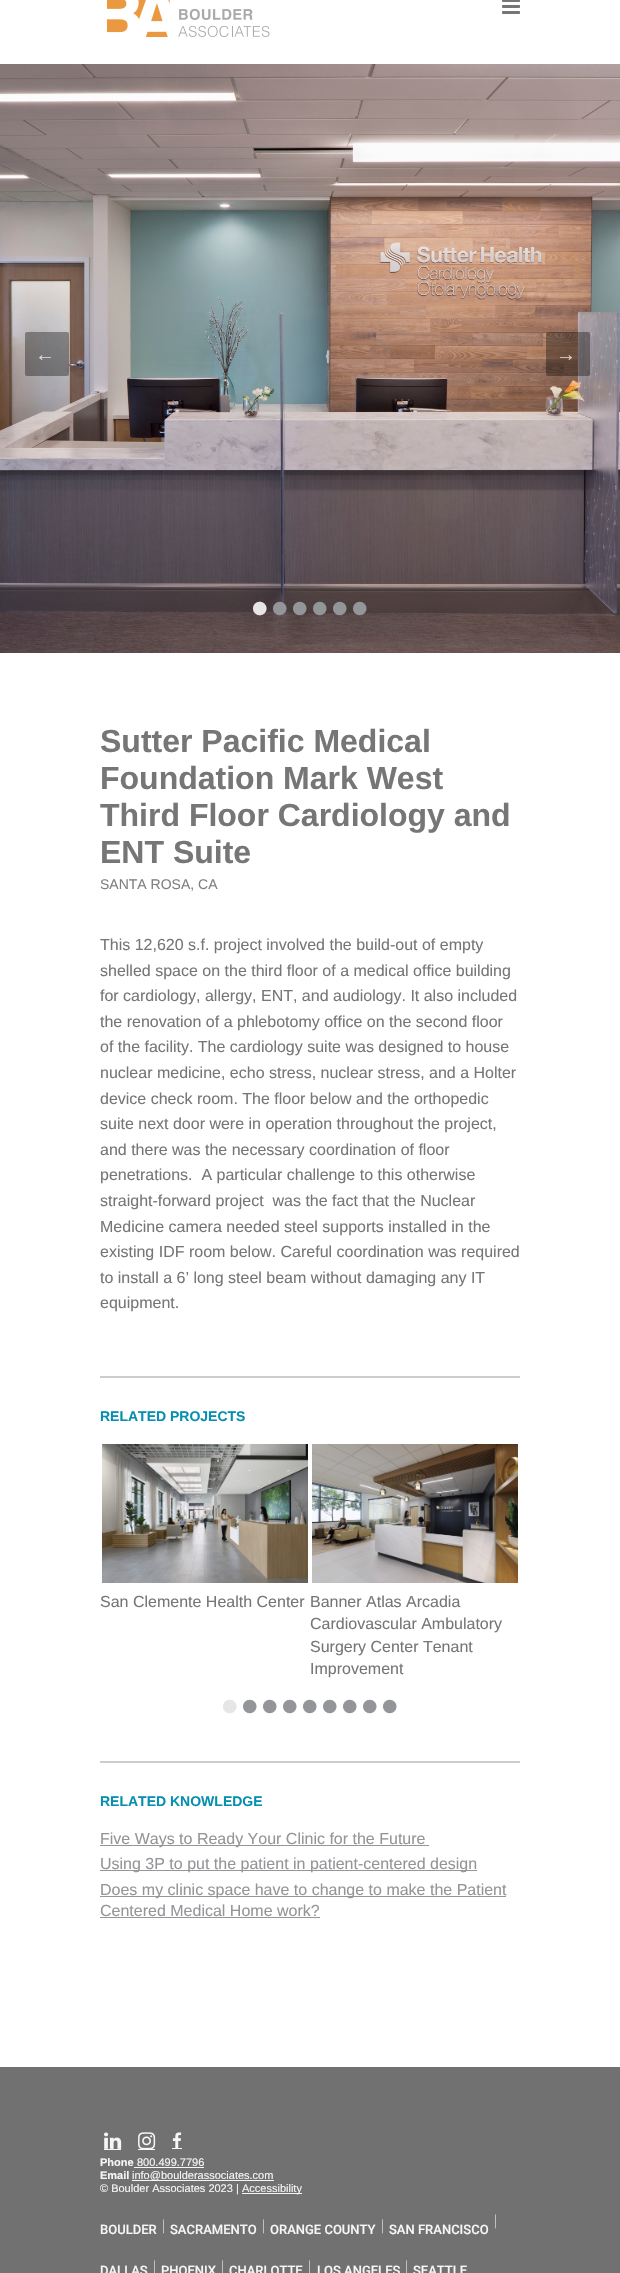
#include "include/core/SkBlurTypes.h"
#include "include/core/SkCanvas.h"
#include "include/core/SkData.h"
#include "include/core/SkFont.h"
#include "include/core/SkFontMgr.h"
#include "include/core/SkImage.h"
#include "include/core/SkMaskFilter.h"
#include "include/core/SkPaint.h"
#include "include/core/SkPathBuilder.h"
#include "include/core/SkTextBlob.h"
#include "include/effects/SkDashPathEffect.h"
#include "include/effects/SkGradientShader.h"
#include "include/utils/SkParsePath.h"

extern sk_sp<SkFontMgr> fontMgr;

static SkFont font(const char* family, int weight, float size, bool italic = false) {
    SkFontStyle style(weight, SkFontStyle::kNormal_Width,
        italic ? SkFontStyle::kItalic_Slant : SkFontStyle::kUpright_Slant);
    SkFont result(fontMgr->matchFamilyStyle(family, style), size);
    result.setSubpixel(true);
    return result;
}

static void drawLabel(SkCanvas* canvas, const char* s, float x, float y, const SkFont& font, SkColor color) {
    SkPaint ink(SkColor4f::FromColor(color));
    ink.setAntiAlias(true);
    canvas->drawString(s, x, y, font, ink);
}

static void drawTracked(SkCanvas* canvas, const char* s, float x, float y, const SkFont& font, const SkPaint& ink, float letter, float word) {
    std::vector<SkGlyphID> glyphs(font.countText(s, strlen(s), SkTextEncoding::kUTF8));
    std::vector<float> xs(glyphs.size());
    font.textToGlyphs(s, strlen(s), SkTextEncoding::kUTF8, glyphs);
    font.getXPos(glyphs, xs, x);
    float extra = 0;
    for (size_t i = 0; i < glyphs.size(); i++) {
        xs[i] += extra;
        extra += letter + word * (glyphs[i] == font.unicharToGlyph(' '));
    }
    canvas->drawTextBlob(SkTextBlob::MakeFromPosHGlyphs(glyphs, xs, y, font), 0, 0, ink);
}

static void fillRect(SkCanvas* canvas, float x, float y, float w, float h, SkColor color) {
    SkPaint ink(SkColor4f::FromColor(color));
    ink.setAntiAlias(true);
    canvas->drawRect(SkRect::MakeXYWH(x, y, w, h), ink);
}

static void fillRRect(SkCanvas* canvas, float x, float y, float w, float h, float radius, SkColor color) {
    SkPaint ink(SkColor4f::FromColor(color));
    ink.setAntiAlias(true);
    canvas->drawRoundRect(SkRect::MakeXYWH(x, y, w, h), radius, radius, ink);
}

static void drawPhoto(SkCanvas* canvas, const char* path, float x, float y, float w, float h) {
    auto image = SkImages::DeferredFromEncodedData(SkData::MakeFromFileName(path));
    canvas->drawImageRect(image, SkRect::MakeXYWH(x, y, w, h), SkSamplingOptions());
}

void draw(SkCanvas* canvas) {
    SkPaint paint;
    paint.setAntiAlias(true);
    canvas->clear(0xFFFFFFFF);
    drawPhoto(canvas, "assets/img1.png", 107, 0, 163, 37);
    drawPhoto(canvas, "assets/img2.png", 502, 0, 18, 14);
    drawPhoto(canvas, "assets/img3.png", 0, 64, 620, 589);
    fillRRect(canvas, 25, 332, 44, 44, 2, 0x59000000);
    SkFont font1 = font("Liberation Serif", 700, 20);
    paint.setColor(0xFFDCDCDD);
    drawTracked(canvas, "←", 35, 361, font1, paint, 1, 0);
    fillRRect(canvas, 546, 332, 44, 44, 2, 0x59000000);
    paint.setColor(0xFFDBD4CF);
    drawTracked(canvas, "→", 556, 361, font1, paint, 1, 0);
    SkFont font2 = font("Liberation Serif", 700, 50);
    paint.setColor(0xFFE6E6E6);
    drawTracked(canvas, "•", 251, 625, font2, paint, 1, 0);
    paint.setColor(0xFF939598);
    drawTracked(canvas, "•", 271, 625, font2, paint, 1, 0);
    drawTracked(canvas, "•", 291, 625, font2, paint, 1, 0);
    drawTracked(canvas, "•", 311, 625, font2, paint, 1, 0);
    drawTracked(canvas, "•", 331, 625, font2, paint, 1, 0);
    drawTracked(canvas, "•", 351, 625, font2, paint, 1, 0);
    SkFont font3 = font("Liberation Sans", 700, 32);
    drawLabel(canvas, "Sutter Pacific Medical", 100, 752, font3, 0xFF767676);
    drawLabel(canvas, "Foundation Mark West", 100, 789, font3, 0xFF767676);
    drawLabel(canvas, "Third Floor Cardiology and", 100, 826, font3, 0xFF767676);
    drawLabel(canvas, "ENT Suite", 100, 863, font3, 0xFF767676);
    SkFont font4 = font("Liberation Sans", 400, 14);
    drawLabel(canvas, "SANTA ROSA, CA", 100, 889, font4, 0xFF808080);
    SkFont font5 = font("Liberation Sans", 400, 16);
    drawLabel(canvas, "This 12,620 s.f. project involved the build-out of empty", 100, 950, font5, 0xFF767676);
    drawLabel(canvas, "shelled space on the third floor of a medical office building", 100, 976, font5, 0xFF767676);
    drawLabel(canvas, "for cardiology, allergy, ENT, and audiology. It also included", 100, 1001, font5, 0xFF767676);
    drawLabel(canvas, "the renovation of a phlebotomy office on the second floor", 100, 1027, font5, 0xFF767676);
    drawLabel(canvas, "of the facility. The cardiology suite was designed to house", 100, 1052, font5, 0xFF767676);
    drawLabel(canvas, "nuclear medicine, echo stress, nuclear stress, and a Holter", 100, 1078, font5, 0xFF767676);
    drawLabel(canvas, "device check room. The floor below and the orthopedic", 100, 1104, font5, 0xFF767676);
    drawLabel(canvas, "suite next door were in operation throughout the project,", 100, 1129, font5, 0xFF767676);
    drawLabel(canvas, "and there was the necessary coordination of floor", 100, 1155, font5, 0xFF767676);
    drawLabel(canvas, "penetrations.  A particular challenge to this otherwise", 100, 1180, font5, 0xFF767676);
    drawLabel(canvas, "straight-forward project  was the fact that the Nuclear", 100, 1206, font5, 0xFF767676);
    drawLabel(canvas, "Medicine camera needed steel supports installed in the", 100, 1232, font5, 0xFF767676);
    drawLabel(canvas, "existing IDF room below. Careful coordination was required", 100, 1257, font5, 0xFF767676);
    drawLabel(canvas, "to install a 6’ long steel beam without damaging any IT", 100, 1283, font5, 0xFF767676);
    drawLabel(canvas, "equipment.", 100, 1308, font5, 0xFF767676);
    fillRect(canvas, 100, 1376, 420, 2, 0xFFCDCDCD);
    SkFont font6 = font("Liberation Sans", 700, 14);
    drawLabel(canvas, "RELATED PROJECTS", 100, 1421, font6, 0xFF078FB1);
    drawPhoto(canvas, "assets/img4.png", 102, 1444, 206, 139);
    drawLabel(canvas, "San Clemente Health Center", 100, 1607, font5, 0xFF767676);
    drawPhoto(canvas, "assets/img5.png", 312, 1444, 206, 139);
    drawLabel(canvas, "Banner Atlas Arcadia", 310, 1607, font5, 0xFF767676);
    drawLabel(canvas, "Cardiovascular Ambulatory", 310, 1629, font5, 0xFF767676);
    drawLabel(canvas, "Surgery Center Tenant", 310, 1652, font5, 0xFF767676);
    drawLabel(canvas, "Improvement", 310, 1674, font5, 0xFF767676);
    paint.setColor(0xFFE6E6E6);
    drawTracked(canvas, "•", 221, 1723, font2, paint, 1, 0);
    paint.setColor(0xFF939598);
    drawTracked(canvas, "•", 241, 1723, font2, paint, 1, 0);
    drawTracked(canvas, "•", 261, 1723, font2, paint, 1, 0);
    drawTracked(canvas, "•", 281, 1723, font2, paint, 1, 0);
    drawTracked(canvas, "•", 301, 1723, font2, paint, 1, 0);
    drawTracked(canvas, "•", 321, 1723, font2, paint, 1, 0);
    drawTracked(canvas, "•", 341, 1723, font2, paint, 1, 0);
    drawTracked(canvas, "•", 361, 1723, font2, paint, 1, 0);
    drawTracked(canvas, "•", 381, 1723, font2, paint, 1, 0);
    fillRect(canvas, 100, 1761, 420, 2, 0xFFCDCDCD);
    drawLabel(canvas, "RELATED KNOWLEDGE", 100, 1806, font6, 0xFF078FB1);
    fillRect(canvas, 100, 1845, 329, 1, 0xFF969696);
    drawLabel(canvas, "Five Ways to Ready Your Clinic for the Future", 100, 1844, font5, 0xFF939598);
    fillRect(canvas, 100, 1870, 377, 1, 0xFF969696);
    drawLabel(canvas, "Using 3P to put the patient in patient-centered design", 100, 1869, font5, 0xFF939598);
    fillRect(canvas, 100, 1896, 406, 1, 0xFF969696);
    drawLabel(canvas, "Does my clinic space have to change to make the Patient", 100, 1895, font5, 0xFF939598);
    drawLabel(canvas, "Centered Medical Home work?", 100, 1916, font5, 0xFF939598);
    fillRect(canvas, 100, 1917, 220, 1, 0xFF969696);
    fillRect(canvas, 0, 2067, 620, 206, 0xFF717171);
    drawPhoto(canvas, "assets/img6.png", 104, 2132, 18, 17);
    fillRect(canvas, 104, 2149, 17, 1, 0xFFF6F6F6);
    drawPhoto(canvas, "assets/img7.png", 138, 2132, 18, 17);
    fillRect(canvas, 138, 2149, 17, 1, 0xFFF6F6F6);
    drawPhoto(canvas, "assets/img8.png", 172, 2132, 10, 16);
    fillRect(canvas, 172, 2148, 10, 1, 0xFFF6F6F6);
    SkFont font7 = font("Liberation Sans", 700, 11);
    drawLabel(canvas, "Phone", 100, 2166, font7, 0xFFF6F6F6);
    SkFont font8 = font("Liberation Sans", 400, 11);
    drawLabel(canvas, "800.499.7796", 137, 2166, font8, 0xFFF6F6F6);
    fillRect(canvas, 134, 2167, 70, 1, 0xFFF6F6F6);
    drawLabel(canvas, "Email", 100, 2179, font7, 0xFFF6F6F6);
    fillRect(canvas, 132, 2180, 142, 1, 0xFFF6F6F6);
    drawLabel(canvas, "info@boulderassociates.com", 132, 2179, font8, 0xFFF6F6F6);
    drawLabel(canvas, "© Boulder Associates 2023 |", 100, 2192, font8, 0xFFF6F6F6);
    fillRect(canvas, 242, 2193, 60, 1, 0xFFF6F6F6);
    drawLabel(canvas, "Accessibility", 242, 2192, font8, 0xFFF6F6F6);
    SkFont font9 = font("Roboto", 500, 13);
    drawLabel(canvas, "BOULDER", 100, 2234, font9, 0xFFF6F6F6);
    SkFont font10 = font("Liberation Serif", 400, 15);
    drawLabel(canvas, "|", 162, 2230, font10, 0xFFD1D1D1);
    drawLabel(canvas, "SACRAMENTO", 170, 2234, font9, 0xFFF6F6F6);
    drawLabel(canvas, "|", 262, 2230, font10, 0xFFD1D1D1);
    drawLabel(canvas, "ORANGE COUNTY", 270, 2234, font9, 0xFFF6F6F6);
    drawLabel(canvas, "|", 381, 2230, font10, 0xFFD1D1D1);
    drawLabel(canvas, "SAN FRANCISCO", 389, 2234, font9, 0xFFF6F6F6);
    drawLabel(canvas, "|", 494, 2225, font10, 0xFFD1D1D1);
    drawLabel(canvas, "DALLAS", 100, 2275, font9, 0xFFF6F6F6);
    drawLabel(canvas, "|", 153, 2271, font10, 0xFFD1D1D1);
    drawLabel(canvas, "PHOENIX", 161, 2275, font9, 0xFFF6F6F6);
    drawLabel(canvas, "|", 221, 2271, font10, 0xFFD1D1D1);
    drawLabel(canvas, "CHARLOTTE", 229, 2275, font9, 0xFFF6F6F6);
    drawLabel(canvas, "|", 308, 2271, font10, 0xFFD1D1D1);
    drawLabel(canvas, "LOS ANGELES", 317, 2275, font9, 0xFFF6F6F6);
    drawLabel(canvas, "|", 405, 2271, font10, 0xFFD1D1D1);
    drawLabel(canvas, "SEATTLE", 413, 2275, font9, 0xFFF6F6F6);
}
